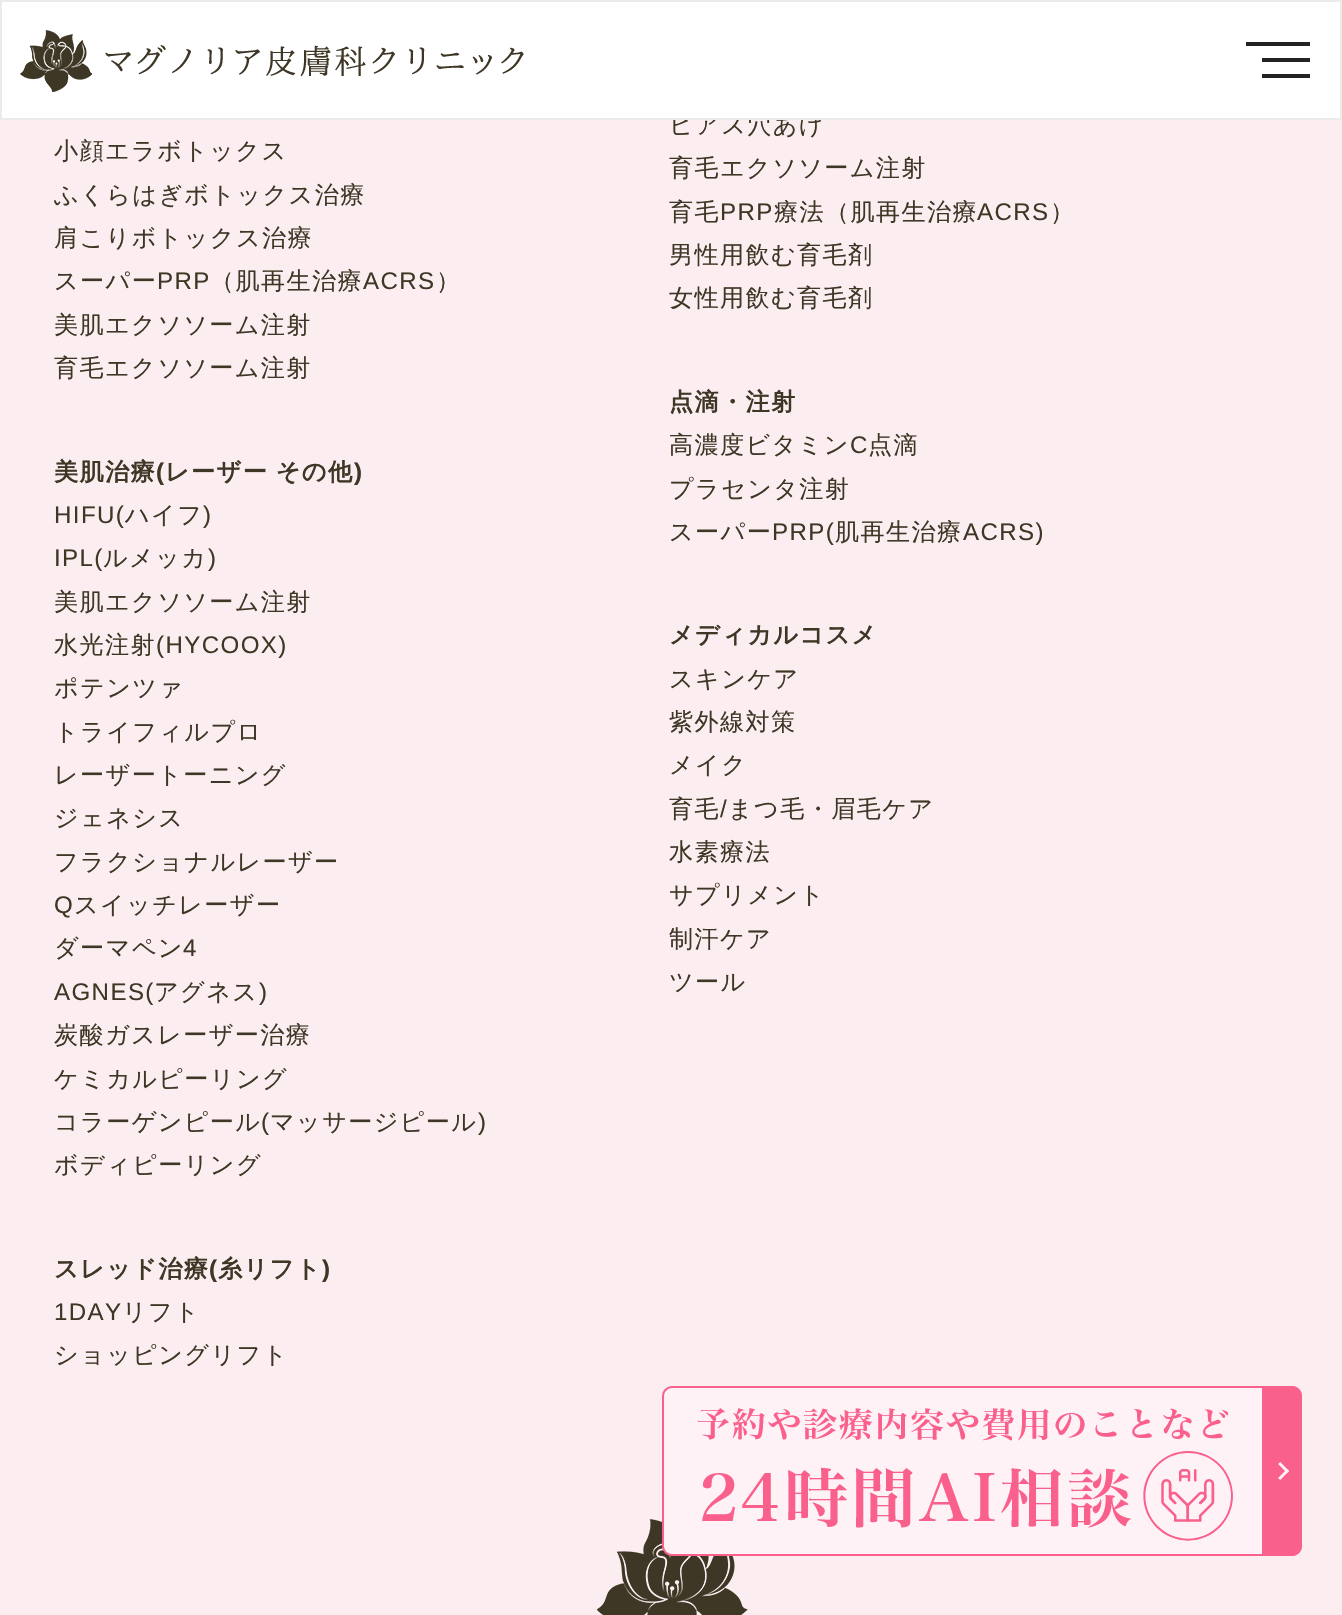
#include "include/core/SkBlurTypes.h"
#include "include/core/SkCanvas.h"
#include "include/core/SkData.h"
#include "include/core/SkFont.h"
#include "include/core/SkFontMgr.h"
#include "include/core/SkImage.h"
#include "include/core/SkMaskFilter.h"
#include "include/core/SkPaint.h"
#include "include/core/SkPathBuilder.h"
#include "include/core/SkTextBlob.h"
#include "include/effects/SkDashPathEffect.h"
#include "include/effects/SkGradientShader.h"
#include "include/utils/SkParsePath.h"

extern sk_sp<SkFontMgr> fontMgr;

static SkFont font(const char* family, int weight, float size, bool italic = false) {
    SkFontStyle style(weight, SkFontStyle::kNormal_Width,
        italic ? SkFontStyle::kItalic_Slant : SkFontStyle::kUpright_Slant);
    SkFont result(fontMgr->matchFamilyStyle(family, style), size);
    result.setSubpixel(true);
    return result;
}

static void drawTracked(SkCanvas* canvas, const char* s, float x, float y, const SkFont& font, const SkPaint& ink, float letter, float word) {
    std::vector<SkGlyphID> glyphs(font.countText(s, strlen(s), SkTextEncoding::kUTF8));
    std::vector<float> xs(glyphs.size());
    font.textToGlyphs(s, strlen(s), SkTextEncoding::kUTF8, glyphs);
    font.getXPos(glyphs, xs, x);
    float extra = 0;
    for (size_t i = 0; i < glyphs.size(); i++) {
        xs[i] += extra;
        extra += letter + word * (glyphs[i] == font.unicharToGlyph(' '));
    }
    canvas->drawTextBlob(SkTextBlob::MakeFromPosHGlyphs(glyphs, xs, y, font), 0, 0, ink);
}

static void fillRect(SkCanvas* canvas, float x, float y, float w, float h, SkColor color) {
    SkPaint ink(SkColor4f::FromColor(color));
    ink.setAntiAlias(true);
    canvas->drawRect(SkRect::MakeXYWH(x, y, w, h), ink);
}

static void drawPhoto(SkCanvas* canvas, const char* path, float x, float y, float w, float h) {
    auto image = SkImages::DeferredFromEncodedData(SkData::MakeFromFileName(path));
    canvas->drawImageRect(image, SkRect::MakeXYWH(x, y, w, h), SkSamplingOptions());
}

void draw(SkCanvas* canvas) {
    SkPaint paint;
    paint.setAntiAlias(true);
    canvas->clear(0xFFFCEDF0);
    SkFont font1 = font("WenQuanYi Zen Hei", 500, 24.1f);
    paint.setColor(0xFF3F3726);
    drawTracked(canvas, "ピアス穴あけ", 669, 133, font1, paint, 1.4f, 0);
    paint.setColor(0xFFFFFFFF);
    canvas->drawRect(SkRect::MakeXYWH(1, 1, 1340, 118), paint);
    paint.setStroke(true);
    paint.setStrokeWidth(2);
    paint.setColor(0xFFEBEBEB);
    canvas->drawRect(SkRect::MakeXYWH(1, 1, 1340, 118), paint);
    drawPhoto(canvas, "assets/img1.png", 20, 30, 504, 62);
    fillRect(canvas, 1246, 42, 64, 4, 0xFF232323);
    fillRect(canvas, 1262, 58, 48, 4, 0xFF232323);
    fillRect(canvas, 1262, 74, 48, 4, 0xFF232323);
    paint.setStroke(false);
    paint.setColor(0xFF3F3726);
    drawTracked(canvas, "小顔エラボトックス", 54, 159, font1, paint, 1.4f, 0);
    drawTracked(canvas, "ふくらはぎボトックス治療", 54, 203, font1, paint, 1.4f, 0);
    drawTracked(canvas, "肩こりボトックス治療", 54, 246, font1, paint, 1.4f, 0);
    drawTracked(canvas, "スーパー", 54, 289, font1, paint, 1.4f, 0);
    SkFont font2 = font("Liberation Sans", 400, 24.1f);
    drawTracked(canvas, "PRP", 157, 289, font2, paint, 1.4f, 0);
    drawTracked(canvas, "（肌再生治療", 210, 289, font1, paint, 1.4f, 0);
    drawTracked(canvas, "ACRS", 363, 289, font2, paint, 1.4f, 0);
    drawTracked(canvas, "）", 436, 289, font1, paint, 1.4f, 0);
    drawTracked(canvas, "美肌エクソソーム注射", 54, 333, font1, paint, 1.4f, 0);
    drawTracked(canvas, "育毛エクソソーム注射", 54, 376, font1, paint, 1.4f, 0);
    SkFont font3 = font("WenQuanYi Zen Hei", 700, 24.1f);
    drawTracked(canvas, "美肌治療", 54, 480, font3, paint, 1.4f, 0);
    SkFont font4 = font("Liberation Sans", 700, 24.1f);
    drawTracked(canvas, "(", 156, 480, font4, paint, 1.4f, 0);
    drawTracked(canvas, "レーザー その他", 165, 480, font3, paint, 1.4f, -1);
    drawTracked(canvas, ")", 354, 480, font4, paint, 1.4f, 0);
    drawTracked(canvas, "HIFU(", 54, 523, font2, paint, 1.4f, 0);
    drawTracked(canvas, "ハイフ", 125, 523, font1, paint, 1.4f, 0);
    drawTracked(canvas, ")", 203, 523, font2, paint, 1.4f, 0);
    drawTracked(canvas, "IPL(", 54, 566, font2, paint, 1.4f, 0);
    drawTracked(canvas, "ルメッカ", 103, 566, font1, paint, 1.4f, 0);
    drawTracked(canvas, ")", 208, 566, font2, paint, 1.4f, 0);
    drawTracked(canvas, "美肌エクソソーム注射", 54, 610, font1, paint, 1.4f, 0);
    drawTracked(canvas, "水光注射", 54, 653, font1, paint, 1.4f, 0);
    drawTracked(canvas, "(HYCOOX)", 156, 653, font2, paint, 1.4f, 0);
    drawTracked(canvas, "ポテンツァ", 54, 696, font1, paint, 1.4f, 0);
    drawTracked(canvas, "トライフィルプロ", 54, 740, font1, paint, 1.4f, 0);
    drawTracked(canvas, "レーザートーニング", 54, 783, font1, paint, 1.4f, 0);
    drawTracked(canvas, "ジェネシス", 54, 826, font1, paint, 1.4f, 0);
    drawTracked(canvas, "フラクショナルレーザー", 54, 870, font1, paint, 1.4f, 0);
    drawTracked(canvas, "Q", 54, 913, font2, paint, 1.4f, 0);
    drawTracked(canvas, "スイッチレーザー", 74, 913, font1, paint, 1.4f, 0);
    drawTracked(canvas, "ダーマペン", 54, 956, font1, paint, 1.4f, 0);
    drawTracked(canvas, "4", 183, 956, font2, paint, 1.4f, 0);
    drawTracked(canvas, "AGNES(", 54, 1000, font2, paint, 1.4f, 0);
    drawTracked(canvas, "アグネス", 154, 1000, font1, paint, 1.4f, 0);
    drawTracked(canvas, ")", 259, 1000, font2, paint, 1.4f, 0);
    drawTracked(canvas, "炭酸ガスレーザー治療", 54, 1043, font1, paint, 1.4f, 0);
    drawTracked(canvas, "ケミカルピーリング", 54, 1087, font1, paint, 1.4f, 0);
    drawTracked(canvas, "コラーゲンピール", 54, 1130, font1, paint, 1.4f, 0);
    drawTracked(canvas, "(", 261, 1130, font2, paint, 1.4f, 0);
    drawTracked(canvas, "マッサージピール", 270, 1130, font1, paint, 1.4f, 0);
    drawTracked(canvas, ")", 478, 1130, font2, paint, 1.4f, 0);
    drawTracked(canvas, "ボディピーリング", 54, 1173, font1, paint, 1.4f, 0);
    drawTracked(canvas, "スレッド治療", 54, 1277, font3, paint, 1.4f, 0);
    drawTracked(canvas, "(", 209, 1277, font4, paint, 1.4f, 0);
    drawTracked(canvas, "糸リフト", 218, 1277, font3, paint, 1.4f, 0);
    drawTracked(canvas, ")", 322, 1277, font4, paint, 1.4f, 0);
    drawTracked(canvas, "1DAY", 54, 1320, font2, paint, 1.4f, 0);
    drawTracked(canvas, "リフト", 122, 1320, font1, paint, 1.4f, 0);
    drawTracked(canvas, "ショッピングリフト", 54, 1363, font1, paint, 1.4f, 0);
    drawTracked(canvas, "育毛エクソソーム注射", 669, 176, font1, paint, 1.4f, 0);
    drawTracked(canvas, "育毛", 669, 220, font1, paint, 1.4f, 0);
    drawTracked(canvas, "PRP", 720, 220, font2, paint, 1.4f, 0);
    drawTracked(canvas, "療法（肌再生治療", 774, 220, font1, paint, 1.4f, 0);
    drawTracked(canvas, "ACRS", 977, 220, font2, paint, 1.4f, 0);
    drawTracked(canvas, "）", 1050, 220, font1, paint, 1.4f, 0);
    drawTracked(canvas, "男性用飲む育毛剤", 669, 263, font1, paint, 1.4f, 0);
    drawTracked(canvas, "女性用飲む育毛剤", 669, 306, font1, paint, 1.4f, 0);
    drawTracked(canvas, "点滴・注射", 669, 410, font3, paint, 1.4f, 0);
    drawTracked(canvas, "高濃度ビタミン", 669, 453, font1, paint, 1.4f, 0);
    drawTracked(canvas, "C", 850, 453, font2, paint, 1.4f, 0);
    drawTracked(canvas, "点滴", 868, 453, font1, paint, 1.4f, 0);
    drawTracked(canvas, "プラセンタ注射", 669, 497, font1, paint, 1.4f, 0);
    drawTracked(canvas, "スーパー", 669, 540, font1, paint, 1.4f, 0);
    drawTracked(canvas, "PRP(", 772, 540, font2, paint, 1.4f, 0);
    drawTracked(canvas, "肌再生治療", 835, 540, font1, paint, 1.4f, 0);
    drawTracked(canvas, "ACRS)", 963, 540, font2, paint, 1.4f, 0);
    drawTracked(canvas, "メディカルコスメ", 669, 643, font3, paint, 1.4f, 0);
    drawTracked(canvas, "スキンケア", 669, 687, font1, paint, 1.4f, 0);
    drawTracked(canvas, "紫外線対策", 669, 730, font1, paint, 1.4f, 0);
    drawTracked(canvas, "メイク", 669, 773, font1, paint, 1.4f, 0);
    drawTracked(canvas, "育毛", 669, 817, font1, paint, 1.4f, 0);
    drawTracked(canvas, "/", 720, 817, font2, paint, 1.4f, 0);
    drawTracked(canvas, "まつ毛・眉毛ケア", 728, 817, font1, paint, 1.4f, 0);
    drawTracked(canvas, "水素療法", 669, 860, font1, paint, 1.4f, 0);
    drawTracked(canvas, "サプリメント", 669, 903, font1, paint, 1.4f, 0);
    drawTracked(canvas, "制汗ケア", 669, 947, font1, paint, 1.4f, 0);
    drawTracked(canvas, "ツール", 669, 990, font1, paint, 1.4f, 0);
    drawPhoto(canvas, "assets/img2.png", 597, 1519, 151, 96);
    drawPhoto(canvas, "assets/img3.png", 662, 1386, 640, 170);
}
